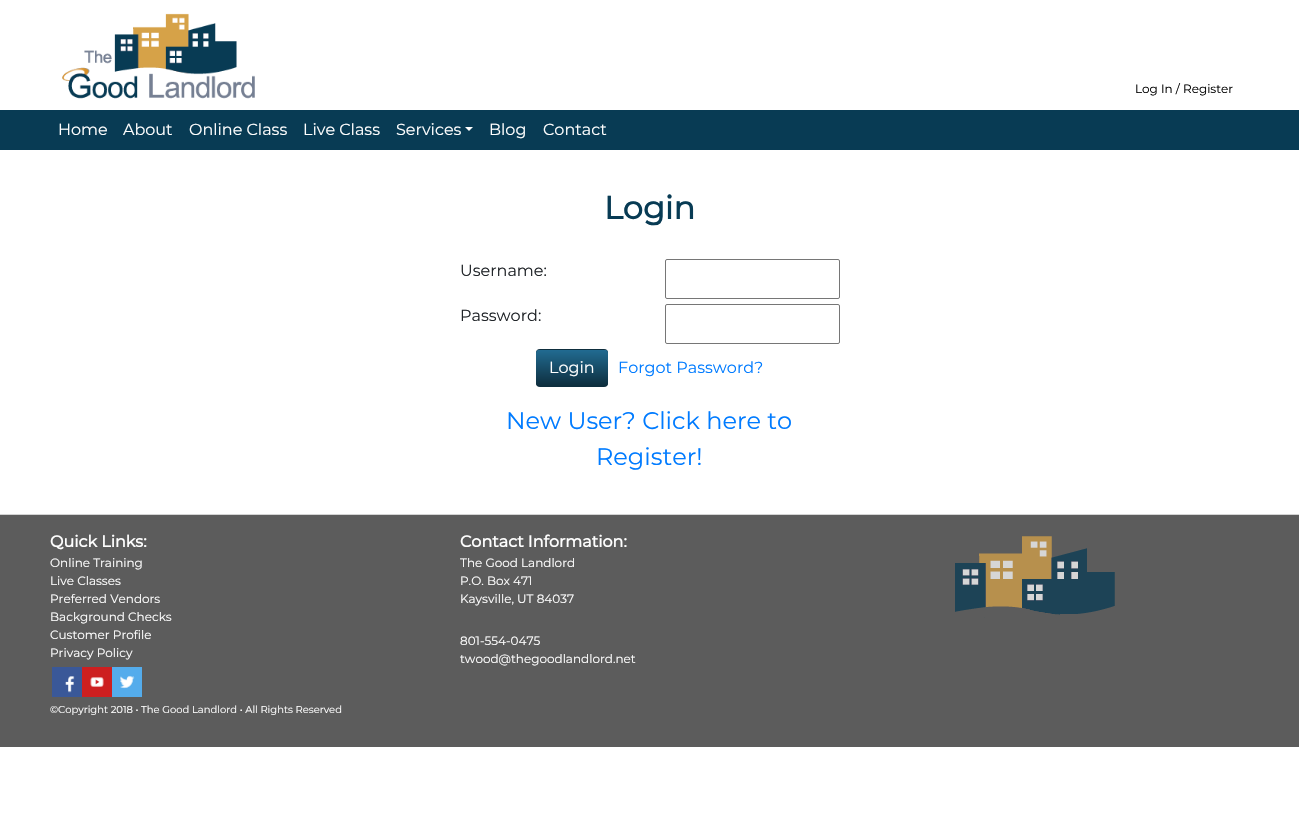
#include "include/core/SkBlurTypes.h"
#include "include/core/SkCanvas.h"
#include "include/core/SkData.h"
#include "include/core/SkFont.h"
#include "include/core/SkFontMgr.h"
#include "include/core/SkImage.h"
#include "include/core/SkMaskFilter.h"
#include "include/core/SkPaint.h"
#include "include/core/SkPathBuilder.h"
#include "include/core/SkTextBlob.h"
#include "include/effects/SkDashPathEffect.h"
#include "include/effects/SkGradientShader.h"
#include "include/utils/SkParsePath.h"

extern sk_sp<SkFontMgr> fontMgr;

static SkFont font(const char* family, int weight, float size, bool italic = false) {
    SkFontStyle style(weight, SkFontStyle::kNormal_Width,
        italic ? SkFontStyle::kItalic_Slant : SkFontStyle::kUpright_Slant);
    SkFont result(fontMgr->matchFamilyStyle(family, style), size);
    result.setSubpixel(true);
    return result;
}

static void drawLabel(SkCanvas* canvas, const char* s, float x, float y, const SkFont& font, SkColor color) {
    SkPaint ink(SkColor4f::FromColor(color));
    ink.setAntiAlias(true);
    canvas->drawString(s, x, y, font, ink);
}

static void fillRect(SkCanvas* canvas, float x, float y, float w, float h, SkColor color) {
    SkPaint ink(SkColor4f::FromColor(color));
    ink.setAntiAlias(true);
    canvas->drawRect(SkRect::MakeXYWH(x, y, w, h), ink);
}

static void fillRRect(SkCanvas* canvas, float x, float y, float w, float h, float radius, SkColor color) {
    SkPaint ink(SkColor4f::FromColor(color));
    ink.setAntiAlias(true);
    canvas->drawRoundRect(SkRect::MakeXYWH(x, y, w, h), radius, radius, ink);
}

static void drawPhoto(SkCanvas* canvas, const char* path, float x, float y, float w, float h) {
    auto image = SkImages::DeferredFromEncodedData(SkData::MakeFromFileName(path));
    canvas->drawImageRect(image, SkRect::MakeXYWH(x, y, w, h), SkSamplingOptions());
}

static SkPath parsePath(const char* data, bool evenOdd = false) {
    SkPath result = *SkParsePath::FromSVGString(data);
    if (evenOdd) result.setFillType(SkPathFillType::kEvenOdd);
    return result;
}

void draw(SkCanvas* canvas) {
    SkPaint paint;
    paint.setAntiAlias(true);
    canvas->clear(0xFFFFFFFF);
    drawPhoto(canvas, "assets/img1.png", 62, 13, 193, 86);
    SkFont font1 = font("Montserrat", 100, 12);
    drawLabel(canvas, "Log In / Register", 1135, 93, font1, 0xFF000000);
    fillRect(canvas, 0, 110, 1299, 40, 0xFF083B54);
    SkFont font2 = font("Montserrat", 100, 16);
    drawLabel(canvas, "Home", 58, 135, font2, 0xFFFFFFFF);
    drawLabel(canvas, "About", 123, 135, font2, 0xFFFFFFFF);
    drawLabel(canvas, "Online Class", 189, 135, font2, 0xFFFFFFFF);
    drawLabel(canvas, "Live Class", 303, 135, font2, 0xFFFFFFFF);
    drawLabel(canvas, "Services", 396, 135, font2, 0xFFFFFFFF);
    paint.setColor(0xFFFFFFFF);
    canvas->drawPath(parsePath("M465 127H473L469 131Z"), paint);
    drawLabel(canvas, "Blog", 489, 135, font2, 0xFFFFFFFF);
    drawLabel(canvas, "Contact", 543, 135, font2, 0xFFFFFFFF);
    SkFont font3 = font("Montserrat", 700, 32);
    drawLabel(canvas, "Login", 604, 219, font3, 0xFF083B54);
    drawLabel(canvas, "Username:", 460, 276, font2, 0xFF212529);
    paint.setStroke(true);
    paint.setStrokeWidth(1);
    paint.setColor(0xFF767676);
    canvas->drawRoundRect(SkRect::MakeXYWH(665.5f, 259.5f, 174, 39), 1.5f, 1.5f, paint);
    drawLabel(canvas, "Password:", 460, 321, font2, 0xFF212529);
    canvas->drawRoundRect(SkRect::MakeXYWH(665.5f, 304.5f, 174, 39), 1.5f, 1.5f, paint);
    fillRRect(canvas, 536, 349, 72, 38, 4, 0xFF0E2E3E);
    canvas->save();
    canvas->clipPath(parsePath("M540 349H604C606 349 608 351 608 353V383C608 385 606 387 604 387H540C538 387 536 385 536 383V353C536 351 538 349 540 349Z"), true);
    paint.setStroke(false);
    {
        const SkColor colors[] = {0xFF216B91, 0xFF0E2E3E};
        const float stops[] = {0, 1};
        const SkPoint ends[] = {{572, 350}, {572, 386}};
        paint.setShader(SkGradientShader::MakeLinear(ends, colors, stops, 2, SkTileMode::kClamp));
        paint.setAlpha(255);
    }
    canvas->drawRect(SkRect::MakeXYWH(536, 350, 72, 36), paint);
    canvas->restore();
    drawLabel(canvas, "Login", 549, 373, font2, 0xFFFFFFFF);
    drawLabel(canvas, "Forgot Password?", 618, 373, font2, 0xFF007BFF);
    SkFont font4 = font("Montserrat", 100, 24);
    drawLabel(canvas, "New User? Click here to", 506, 429, font4, 0xFF007BFF);
    drawLabel(canvas, "Register!", 596, 465, font4, 0xFF007BFF);
    fillRect(canvas, 0, 514, 1299, 1, 0xFFD3D3D3);
    fillRect(canvas, 0, 515, 1299, 232, 0xFF5C5C5C);
    SkFont font5 = font("Montserrat", 700, 16);
    drawLabel(canvas, "Quick Links:", 50, 547, font5, 0xFFFFFFFF);
    drawLabel(canvas, "Online Training", 50, 567, font1, 0xFFFFFFFF);
    drawLabel(canvas, "Live Classes", 50, 585, font1, 0xFFFFFFFF);
    drawLabel(canvas, "Preferred Vendors", 50, 603, font1, 0xFFFFFFFF);
    drawLabel(canvas, "Background Checks", 50, 621, font1, 0xFFFFFFFF);
    drawLabel(canvas, "Customer Profile", 50, 639, font1, 0xFFFFFFFF);
    drawLabel(canvas, "Privacy Policy", 50, 657, font1, 0xFFFFFFFF);
    drawPhoto(canvas, "assets/img2.png", 52, 667, 30, 30);
    drawPhoto(canvas, "assets/img3.png", 82, 667, 30, 30);
    drawPhoto(canvas, "assets/img4.png", 112, 667, 30, 30);
    SkFont font6 = font("Montserrat", 100, 10);
    drawLabel(canvas, "©Copyright 2018 • The Good Landlord • All Rights Reserved", 50, 713, font6, 0xFFFFFFFF);
    drawLabel(canvas, "Contact Information:", 460, 547, font5, 0xFFFFFFFF);
    drawLabel(canvas, "The Good Landlord", 460, 567, font1, 0xFFFFFFFF);
    drawLabel(canvas, "P.O. Box 471", 460, 585, font1, 0xFFFFFFFF);
    drawLabel(canvas, "Kaysville, UT 84037", 460, 603, font1, 0xFFFFFFFF);
    drawLabel(canvas, "801-554-0475", 460, 645, font1, 0xFFFFFFFF);
    drawLabel(canvas, "twood@thegoodlandlord.net", 460, 663, font1, 0xFFFFFFFF);
    drawPhoto(canvas, "assets/img5.png", 955, 536, 160, 82);
}
